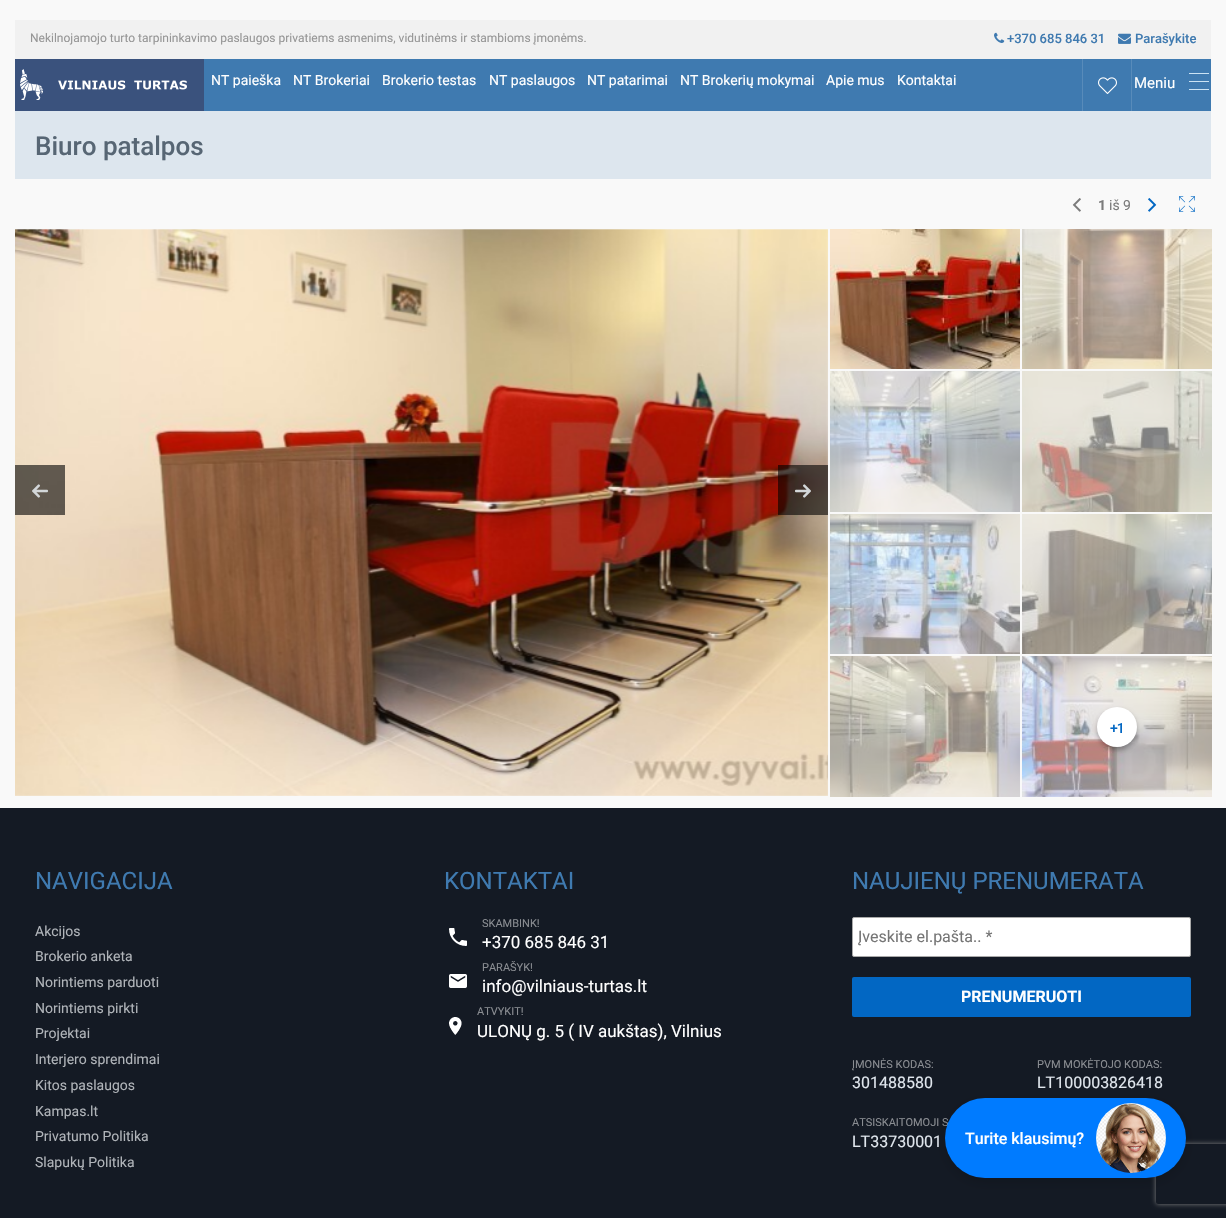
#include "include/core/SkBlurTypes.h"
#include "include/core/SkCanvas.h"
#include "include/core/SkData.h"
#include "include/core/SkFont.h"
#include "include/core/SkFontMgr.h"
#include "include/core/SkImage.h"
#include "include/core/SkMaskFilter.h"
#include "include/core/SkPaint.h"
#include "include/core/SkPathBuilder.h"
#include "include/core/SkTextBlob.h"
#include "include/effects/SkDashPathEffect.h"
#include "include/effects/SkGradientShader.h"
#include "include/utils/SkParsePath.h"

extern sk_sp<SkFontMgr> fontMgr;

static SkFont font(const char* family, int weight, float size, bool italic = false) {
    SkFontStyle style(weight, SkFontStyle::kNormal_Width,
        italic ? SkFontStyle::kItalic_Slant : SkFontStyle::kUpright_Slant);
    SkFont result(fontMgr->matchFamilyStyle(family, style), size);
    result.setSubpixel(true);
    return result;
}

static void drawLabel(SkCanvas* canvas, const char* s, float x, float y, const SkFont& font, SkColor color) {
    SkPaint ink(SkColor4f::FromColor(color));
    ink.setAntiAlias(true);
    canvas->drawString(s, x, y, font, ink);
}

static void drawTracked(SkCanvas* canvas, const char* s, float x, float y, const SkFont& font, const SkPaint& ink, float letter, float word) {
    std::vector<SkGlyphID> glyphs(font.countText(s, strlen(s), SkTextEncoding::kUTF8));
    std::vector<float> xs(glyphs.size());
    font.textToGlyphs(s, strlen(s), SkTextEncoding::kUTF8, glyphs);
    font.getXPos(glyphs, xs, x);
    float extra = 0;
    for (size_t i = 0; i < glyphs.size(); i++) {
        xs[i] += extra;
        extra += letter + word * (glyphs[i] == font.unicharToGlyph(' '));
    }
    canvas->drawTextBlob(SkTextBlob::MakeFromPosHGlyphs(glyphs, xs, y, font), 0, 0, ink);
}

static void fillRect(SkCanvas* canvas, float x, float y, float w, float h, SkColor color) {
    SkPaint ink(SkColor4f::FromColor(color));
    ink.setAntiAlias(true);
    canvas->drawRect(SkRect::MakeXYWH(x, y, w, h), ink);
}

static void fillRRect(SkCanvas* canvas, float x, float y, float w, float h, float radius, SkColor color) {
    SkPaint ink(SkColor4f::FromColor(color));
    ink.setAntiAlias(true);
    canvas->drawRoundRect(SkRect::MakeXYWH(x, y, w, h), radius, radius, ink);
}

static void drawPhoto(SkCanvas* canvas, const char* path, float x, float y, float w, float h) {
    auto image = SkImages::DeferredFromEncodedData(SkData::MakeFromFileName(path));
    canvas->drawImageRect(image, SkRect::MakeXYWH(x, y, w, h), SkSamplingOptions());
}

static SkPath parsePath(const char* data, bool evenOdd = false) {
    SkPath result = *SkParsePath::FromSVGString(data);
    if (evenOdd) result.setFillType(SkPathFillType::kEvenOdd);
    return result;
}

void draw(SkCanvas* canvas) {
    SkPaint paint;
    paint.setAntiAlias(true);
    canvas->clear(0xFFF9F9F9);
    fillRect(canvas, 15, 20, 1196, 39, 0xFFF1F1F1);
    SkFont font1 = font("Roboto", 400, 12);
    drawLabel(canvas, "Nekilnojamojo turto tarpininkavimo paslaugos privatiems asmenims, vidutinėms ir stambioms įmonėms.", 30, 42, font1, 0xFF969696);
    drawPhoto(canvas, "assets/img1.png", 994, 32, 11, 11);
    SkFont font2 = font("Roboto", 500, 13);
    drawLabel(canvas, "+370 685 846 31", 1007, 43, font2, 0xFF3F7AB0);
    drawPhoto(canvas, "assets/img2.png", 1118, 33, 13, 11);
    drawLabel(canvas, "Parašykite", 1135, 43, font2, 0xFF3F7AB0);
    fillRect(canvas, 204, 59, 1007, 52, 0xFF3F7AB0);
    fillRect(canvas, 15, 59, 189, 52, 0xFF3A527D);
    drawPhoto(canvas, "assets/img3.png", 20, 69, 167, 31);
    SkFont font3 = font("Roboto", 400, 14);
    drawLabel(canvas, "NT paieška", 211, 85, font3, 0xFFFFFFFF);
    drawLabel(canvas, "NT Brokeriai", 293, 85, font3, 0xFFFFFFFF);
    drawLabel(canvas, "Brokerio testas", 382, 85, font3, 0xFFFFFFFF);
    drawLabel(canvas, "NT paslaugos", 489, 85, font3, 0xFFFFFFFF);
    drawLabel(canvas, "NT patarimai", 587, 85, font3, 0xFFFFFFFF);
    drawLabel(canvas, "NT Brokerių mokymai", 680, 85, font3, 0xFFFFFFFF);
    drawLabel(canvas, "Apie mus", 826, 85, font3, 0xFFFFFFFF);
    drawLabel(canvas, "Kontaktai", 897, 85, font3, 0xFFFFFFFF);
    fillRect(canvas, 1131, 59, 1, 52, 0xFF588BBA);
    fillRect(canvas, 1082, 59, 1, 52, 0xFF588BBA);
    drawPhoto(canvas, "assets/img4.png", 1098, 77, 19, 17);
    SkFont font4 = font("Roboto", 400, 15);
    drawLabel(canvas, "Meniu", 1134, 88, font4, 0xFFFFFFFF);
    fillRect(canvas, 1189, 73, 20, 1, 0xFFCBE3F4);
    fillRect(canvas, 1189, 81, 20, 1, 0xFFCBE3F4);
    fillRect(canvas, 1189, 89, 20, 1, 0xFFCBE3F4);
    fillRect(canvas, 15, 111, 1196, 68, 0xFFDDE6EE);
    SkFont font5 = font("Roboto", 500, 26);
    drawLabel(canvas, "Biuro patalpos", 35, 155, font5, 0xFF576674);
    drawPhoto(canvas, "assets/img5.png", 15, 229, 813, 567);
    fillRect(canvas, 15, 465, 50, 50, 0x99000000);
    drawPhoto(canvas, "assets/img6.png", 32, 484, 16, 14);
    fillRect(canvas, 778, 465, 50, 50, 0x99000000);
    drawPhoto(canvas, "assets/img7.png", 795, 484, 16, 14);
    drawPhoto(canvas, "assets/img8.png", 1072, 198, 9, 14);
    SkFont font6 = font("Roboto", 700, 14);
    drawLabel(canvas, "1", 1098, 210, font6, 0xFF7B7B7B);
    drawLabel(canvas, "iš 9", 1109, 210, font3, 0xFF7B7B7B);
    drawPhoto(canvas, "assets/img9.png", 1148, 198, 9, 14);
    drawPhoto(canvas, "assets/img10.png", 1179, 196, 16, 16);
    drawPhoto(canvas, "assets/img11.png", 830, 229, 190, 140);
    drawPhoto(canvas, "assets/img12.png", 1022, 229, 190, 140);
    drawPhoto(canvas, "assets/img13.png", 830, 371, 190, 141);
    drawPhoto(canvas, "assets/img14.png", 1022, 371, 190, 141);
    drawPhoto(canvas, "assets/img15.png", 830, 514, 190, 140);
    drawPhoto(canvas, "assets/img16.png", 1022, 514, 190, 140);
    drawPhoto(canvas, "assets/img17.png", 830, 656, 190, 141);
    drawPhoto(canvas, "assets/img18.png", 1022, 656, 190, 141);
    paint.setColor(0x4D000000);
    paint.setMaskFilter(SkMaskFilter::MakeBlur(kNormal_SkBlurStyle, 2.5f));
    canvas->drawRoundRect(SkRect::MakeXYWH(1097, 710, 40, 40), 20, 20, paint);
    paint.setMaskFilter(nullptr);
    paint.setColor(0xFFFFFFFF);
    canvas->drawCircle(1117, 727, 20, paint);
    SkFont font7 = font("Roboto", 500, 14);
    paint.setColor(0xFF0267C3);
    drawTracked(canvas, "+1", 1110, 733, font7, paint, -1, 0);
    fillRect(canvas, 0, 808, 1226, 410, 0xFF141A24);
    SkFont font8 = font("Roboto", 400, 24);
    drawLabel(canvas, "NAVIGACIJA", 35, 889, font8, 0xFF3F7AB0);
    drawLabel(canvas, "Akcijos", 35, 936, font3, 0xFFB0B4B9);
    drawLabel(canvas, "Brokerio anketa", 35, 961, font3, 0xFFB0B4B9);
    drawLabel(canvas, "Norintiems parduoti", 35, 987, font3, 0xFFB0B4B9);
    drawLabel(canvas, "Norintiems pirkti", 35, 1013, font3, 0xFFB0B4B9);
    drawLabel(canvas, "Projektai", 35, 1038, font3, 0xFFB0B4B9);
    drawLabel(canvas, "Interjero sprendimai", 35, 1064, font3, 0xFFB0B4B9);
    drawLabel(canvas, "Kitos paslaugos", 35, 1090, font3, 0xFFB0B4B9);
    drawLabel(canvas, "Kampas.lt", 35, 1116, font3, 0xFFB0B4B9);
    drawLabel(canvas, "Privatumo Politika", 35, 1141, font3, 0xFFB0B4B9);
    drawLabel(canvas, "Slapukų Politika", 35, 1167, font3, 0xFFB0B4B9);
    drawLabel(canvas, "KONTAKTAI", 444, 889, font8, 0xFF3F7AB0);
    SkFont font9 = font("Roboto", 400, 11);
    drawLabel(canvas, "SKAMBINK!", 482, 927, font9, 0xFF8A8D92);
    drawPhoto(canvas, "assets/img19.png", 449, 928, 18, 18);
    SkFont font10 = font("Roboto", 400, 17);
    drawLabel(canvas, "+370 685 846 31", 482, 948, font10, 0xFFFFFFFF);
    drawLabel(canvas, "PARAŠYK!", 482, 971, font9, 0xFF8A8D92);
    drawPhoto(canvas, "assets/img20.png", 449, 974, 18, 14);
    drawLabel(canvas, "info@vilniaus-turtas.lt", 482, 992, font10, 0xFFFFFFFF);
    drawLabel(canvas, "ATVYKIT!", 477, 1015, font9, 0xFF8A8D92);
    drawPhoto(canvas, "assets/img21.png", 449, 1017, 13, 18);
    drawLabel(canvas, "ULONŲ g. 5 ( IV aukštas), Vilnius", 477, 1037, font10, 0xFFFFFFFF);
    drawLabel(canvas, "NAUJIENŲ PRENUMERATA", 852, 889, font8, 0xFF3F7AB0);
    paint.setColor(0xFFFFFFFF);
    canvas->drawRoundRect(SkRect::MakeXYWH(852.5f, 917.5f, 338, 39), 1.5f, 1.5f, paint);
    paint.setStroke(true);
    paint.setStrokeWidth(1);
    paint.setColor(0xFFA9A9A9);
    canvas->drawRoundRect(SkRect::MakeXYWH(852.5f, 917.5f, 338, 39), 1.5f, 1.5f, paint);
    SkFont font11 = font("Roboto", 400, 16);
    drawLabel(canvas, "Įveskite el.pašta.. *", 858, 942, font11, 0xFF757575);
    fillRRect(canvas, 852, 977, 339, 40, 2, 0xFF0267C3);
    SkFont font12 = font("Roboto", 700, 16);
    drawLabel(canvas, "PRENUMERUOTI", 961, 1002, font12, 0xFFFFFFFF);
    drawLabel(canvas, "ĮMONĖS KODAS:", 852, 1068, font9, 0xFF8A8D92);
    drawLabel(canvas, "301488580", 852, 1088, font11, 0xFFE0E6ED);
    drawLabel(canvas, "PVM MOKĖTOJO KODAS:", 1037, 1068, font9, 0xFF8A8D92);
    drawLabel(canvas, "LT100003826418", 1037, 1088, font11, 0xFFE0E6ED);
    drawLabel(canvas, "ATSISKAITOMOJI S", 852, 1126, font9, 0xFF8A8D92);
    drawLabel(canvas, "LT33730001", 852, 1147, font11, 0xFFE0E6ED);
    paint.setStroke(false);
    paint.setColor(0x26000000);
    paint.setMaskFilter(SkMaskFilter::MakeBlur(kNormal_SkBlurStyle, 6));
    canvas->drawRoundRect(SkRect::MakeXYWH(945, 1102, 241, 80), 40, 40, paint);
    paint.setMaskFilter(nullptr);
    canvas->save();
    canvas->clipPath(parsePath("M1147 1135H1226V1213H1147ZM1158 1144H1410C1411 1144 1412 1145 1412 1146V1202C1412 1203 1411 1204 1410 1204H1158C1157 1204 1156 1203 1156 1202V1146C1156 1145 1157 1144 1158 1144Z", true), true);
    paint.setColor(0xFF808080);
    paint.setMaskFilter(SkMaskFilter::MakeBlur(kNormal_SkBlurStyle, 2.5f));
    canvas->drawRoundRect(SkRect::MakeXYWH(1156, 1144, 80, 60), 2, 2, paint);
    paint.setMaskFilter(nullptr);
    canvas->restore();
    fillRRect(canvas, 945, 1098, 241, 80, 40, 0xFF007BFF);
    SkFont font13 = font("Roboto", 500, 16);
    drawLabel(canvas, "Turite klausimų?", 965, 1144, font13, 0xFFFFFFFF);
    drawPhoto(canvas, "assets/img22.png", 1096, 1103, 70, 70);
}
